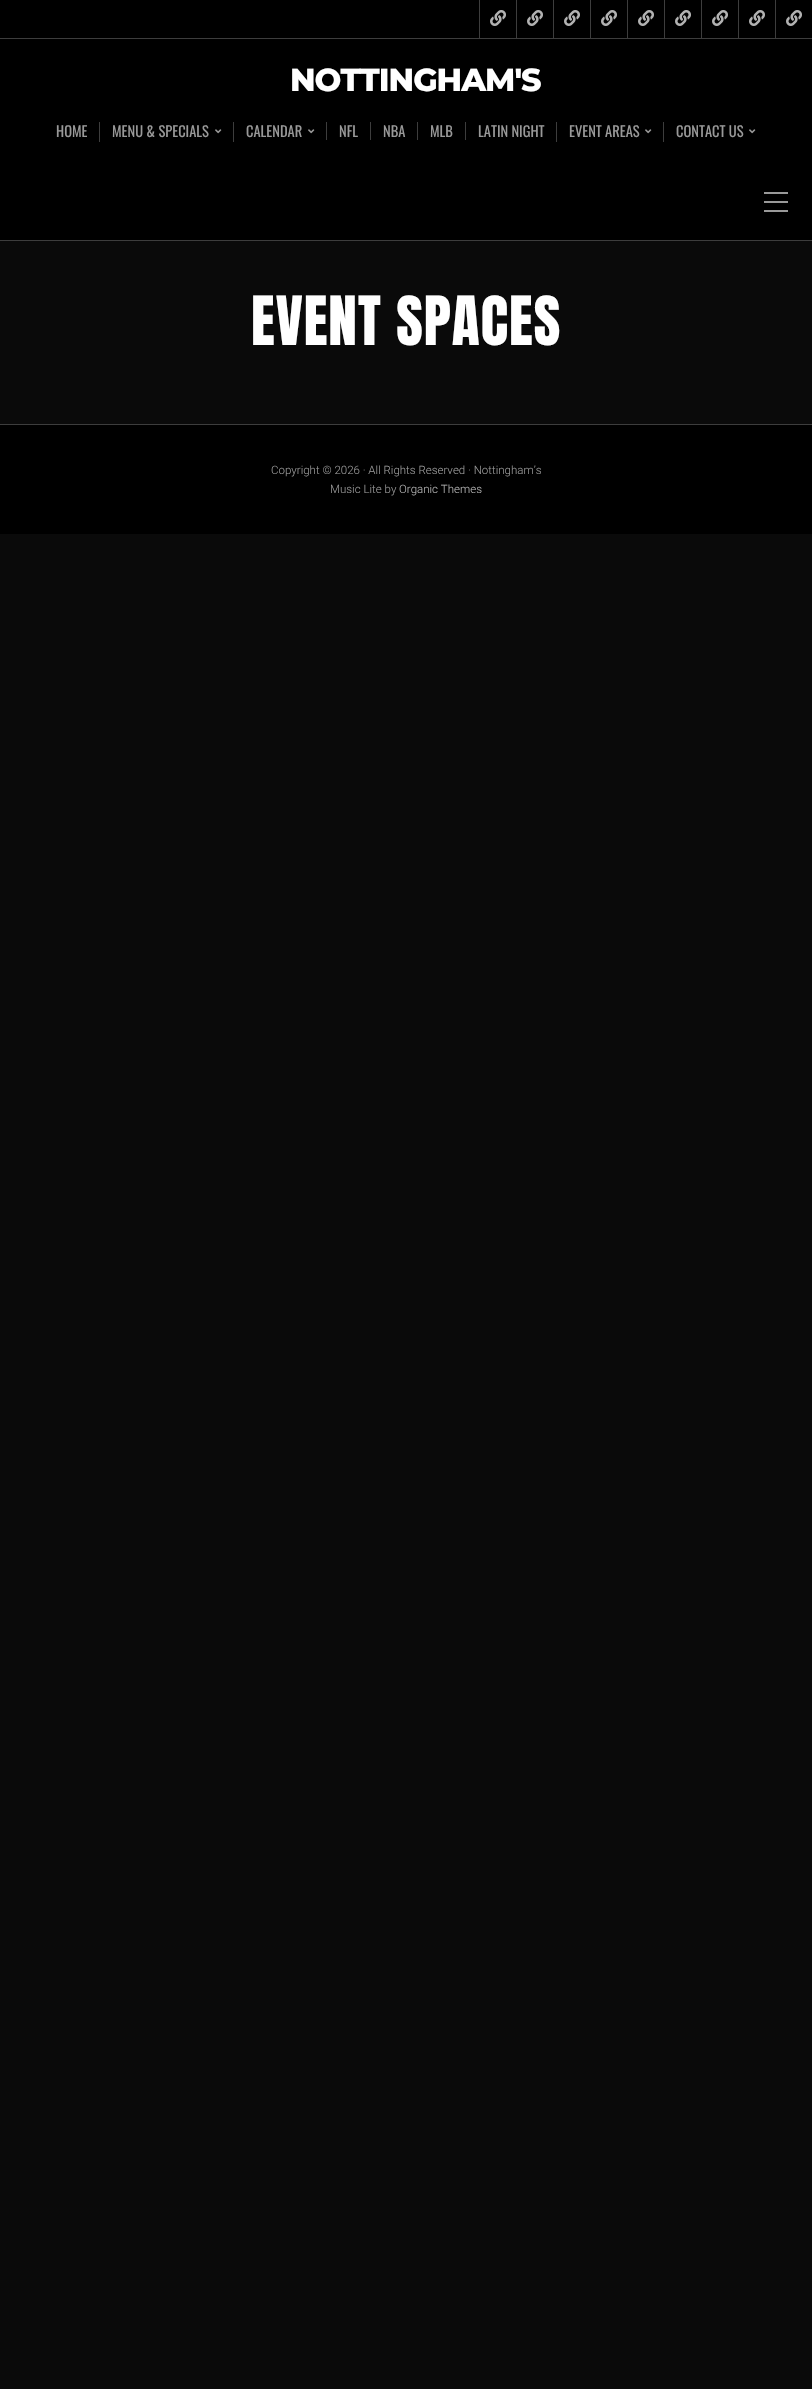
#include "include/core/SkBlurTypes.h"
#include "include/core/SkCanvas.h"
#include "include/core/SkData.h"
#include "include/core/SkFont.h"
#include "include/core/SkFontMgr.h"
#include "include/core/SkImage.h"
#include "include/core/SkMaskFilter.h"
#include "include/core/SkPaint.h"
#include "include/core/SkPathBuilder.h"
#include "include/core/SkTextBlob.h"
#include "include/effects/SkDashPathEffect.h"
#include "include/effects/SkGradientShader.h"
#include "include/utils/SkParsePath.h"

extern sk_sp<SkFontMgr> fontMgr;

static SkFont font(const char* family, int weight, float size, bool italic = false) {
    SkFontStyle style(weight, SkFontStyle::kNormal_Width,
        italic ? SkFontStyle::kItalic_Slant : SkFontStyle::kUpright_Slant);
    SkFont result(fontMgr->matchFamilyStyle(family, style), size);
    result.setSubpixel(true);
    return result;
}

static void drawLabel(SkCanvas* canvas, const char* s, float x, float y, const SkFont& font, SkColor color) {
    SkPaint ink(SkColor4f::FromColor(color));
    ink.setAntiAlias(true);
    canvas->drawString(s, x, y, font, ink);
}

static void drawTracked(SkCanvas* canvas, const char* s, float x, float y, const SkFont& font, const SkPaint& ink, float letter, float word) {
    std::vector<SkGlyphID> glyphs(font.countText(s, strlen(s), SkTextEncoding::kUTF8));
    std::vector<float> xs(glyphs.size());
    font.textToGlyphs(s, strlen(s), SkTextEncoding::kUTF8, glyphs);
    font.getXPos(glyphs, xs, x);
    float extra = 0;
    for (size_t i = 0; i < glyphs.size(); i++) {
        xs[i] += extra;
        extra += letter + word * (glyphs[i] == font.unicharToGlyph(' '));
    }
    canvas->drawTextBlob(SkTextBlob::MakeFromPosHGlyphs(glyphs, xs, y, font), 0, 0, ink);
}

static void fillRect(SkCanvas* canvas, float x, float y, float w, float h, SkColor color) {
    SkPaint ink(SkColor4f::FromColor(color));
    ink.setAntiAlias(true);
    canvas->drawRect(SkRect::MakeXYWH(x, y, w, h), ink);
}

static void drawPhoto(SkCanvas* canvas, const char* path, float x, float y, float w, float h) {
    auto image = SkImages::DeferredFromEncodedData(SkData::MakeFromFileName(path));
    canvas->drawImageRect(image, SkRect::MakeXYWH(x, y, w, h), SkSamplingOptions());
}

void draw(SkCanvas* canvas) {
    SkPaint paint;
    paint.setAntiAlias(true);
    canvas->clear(0xFF0A0A0A);
    fillRect(canvas, 0, 0, 812, 240, 0xFF000000);
    fillRect(canvas, 0, 240, 812, 1, 0xFF3D3D3D);
    fillRect(canvas, 0, 38, 812, 1, 0xFF3D3D3D);
    fillRect(canvas, 479, 0, 1, 38, 0xFF3D3D3D);
    drawPhoto(canvas, "assets/img1.png", 490, 10, 16, 16);
    fillRect(canvas, 516, 0, 1, 38, 0xFF3D3D3D);
    drawPhoto(canvas, "assets/img1.png", 527, 10, 16, 16);
    fillRect(canvas, 553, 0, 1, 38, 0xFF3D3D3D);
    drawPhoto(canvas, "assets/img1.png", 564, 10, 16, 16);
    fillRect(canvas, 590, 0, 1, 38, 0xFF3D3D3D);
    drawPhoto(canvas, "assets/img1.png", 601, 10, 16, 16);
    fillRect(canvas, 627, 0, 1, 38, 0xFF3D3D3D);
    drawPhoto(canvas, "assets/img1.png", 638, 10, 16, 16);
    fillRect(canvas, 664, 0, 1, 38, 0xFF3D3D3D);
    drawPhoto(canvas, "assets/img1.png", 675, 10, 16, 16);
    fillRect(canvas, 701, 0, 1, 38, 0xFF3D3D3D);
    drawPhoto(canvas, "assets/img1.png", 712, 10, 16, 16);
    fillRect(canvas, 738, 0, 1, 38, 0xFF3D3D3D);
    drawPhoto(canvas, "assets/img1.png", 749, 10, 16, 16);
    fillRect(canvas, 775, 0, 1, 38, 0xFF3D3D3D);
    drawPhoto(canvas, "assets/img1.png", 786, 10, 16, 16);
    SkFont font1 = font("Montserrat", 800, 31.75f);
    paint.setColor(0xFFFFFFFF);
    drawTracked(canvas, "NOTTINGHAM'S", 290, 91, font1, paint, -1, 0);
    SkFont font2 = font("Oswald", 400, 14.5f);
    drawLabel(canvas, "HOME", 56, 137, font2, 0xFF999999);
    fillRect(canvas, 99, 122, 1, 20, 0xFF3D3D3D);
    drawLabel(canvas, "MENU & SPECIALS", 112, 137, font2, 0xFF999999);
    drawPhoto(canvas, "assets/img2.png", 215, 129, 7, 5);
    fillRect(canvas, 233, 122, 1, 20, 0xFF3D3D3D);
    drawLabel(canvas, "CALENDAR", 246, 137, font2, 0xFF999999);
    drawPhoto(canvas, "assets/img2.png", 308, 129, 7, 5);
    fillRect(canvas, 326, 122, 1, 18, 0xFF3D3D3D);
    drawLabel(canvas, "NFL", 339, 137, font2, 0xFF999999);
    fillRect(canvas, 370, 122, 1, 18, 0xFF3D3D3D);
    drawLabel(canvas, "NBA", 383, 137, font2, 0xFF999999);
    fillRect(canvas, 417, 122, 1, 18, 0xFF3D3D3D);
    drawLabel(canvas, "MLB", 430, 137, font2, 0xFF999999);
    fillRect(canvas, 465, 122, 1, 18, 0xFF3D3D3D);
    drawLabel(canvas, "LATIN NIGHT", 478, 137, font2, 0xFF999999);
    fillRect(canvas, 556, 122, 1, 20, 0xFF3D3D3D);
    drawLabel(canvas, "EVENT AREAS", 569, 137, font2, 0xFF999999);
    drawPhoto(canvas, "assets/img2.png", 645, 129, 7, 5);
    fillRect(canvas, 663, 122, 1, 20, 0xFF3D3D3D);
    drawLabel(canvas, "CONTACT US", 676, 137, font2, 0xFF999999);
    drawPhoto(canvas, "assets/img2.png", 749, 129, 7, 5);
    fillRect(canvas, 764, 192, 24, 2, 0xFF999999);
    fillRect(canvas, 764, 201, 24, 2, 0xFF999999);
    fillRect(canvas, 764, 210, 24, 2, 0xFF999999);
    SkFont font3 = font("Anton", 400, 57.5f);
    drawTracked(canvas, "EVENT SPACES", 251, 345, font3, paint, 1, 0);
    fillRect(canvas, 0, 425, 812, 109, 0xFF000000);
    fillRect(canvas, 0, 424, 812, 1, 0xFF3D3D3D);
    SkFont font4 = font("Roboto", 300, 11.5f);
    drawLabel(canvas, "Copyright © 2026 · All Rights Reserved · Nottingham’s", 271, 474, font4, 0xFF999999);
    drawLabel(canvas, "Music Lite by", 330, 493, font4, 0xFF999999);
    drawLabel(canvas, "Organic Themes", 399, 493, font4, 0xFFB3B3B3);
}
